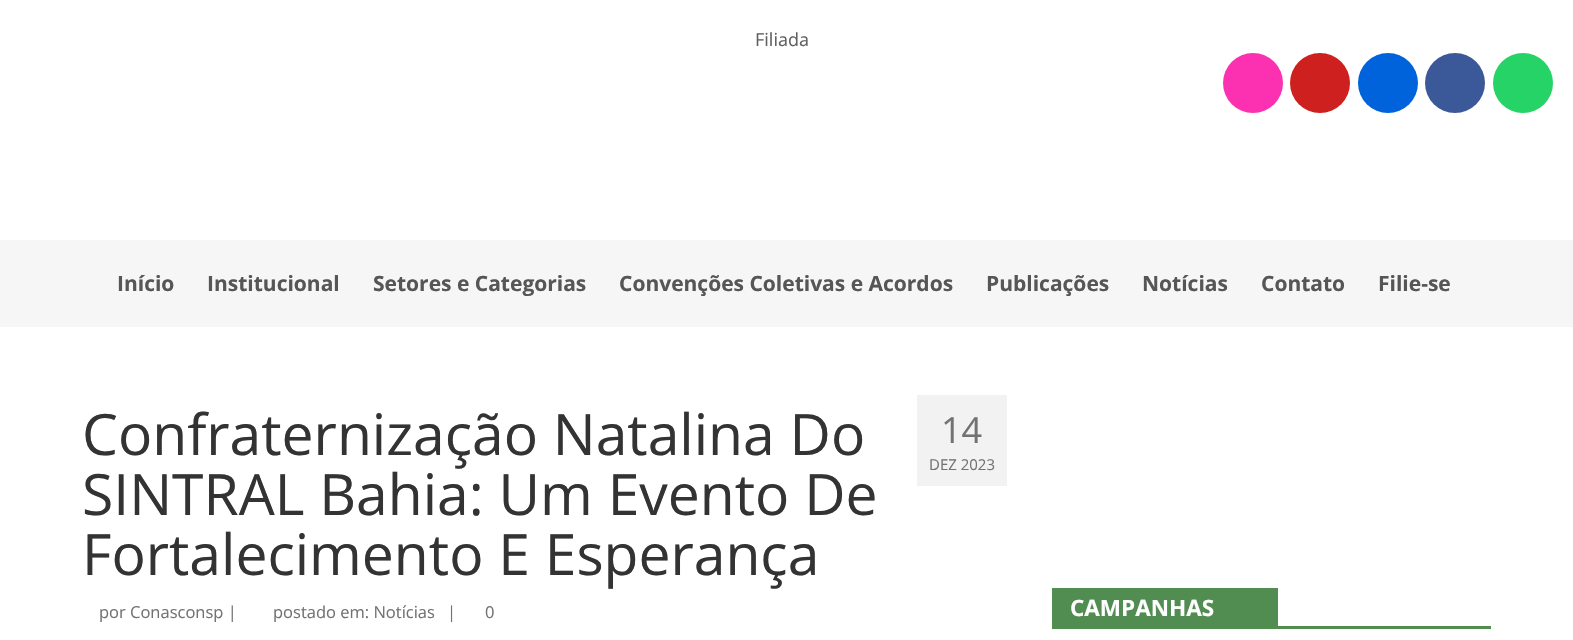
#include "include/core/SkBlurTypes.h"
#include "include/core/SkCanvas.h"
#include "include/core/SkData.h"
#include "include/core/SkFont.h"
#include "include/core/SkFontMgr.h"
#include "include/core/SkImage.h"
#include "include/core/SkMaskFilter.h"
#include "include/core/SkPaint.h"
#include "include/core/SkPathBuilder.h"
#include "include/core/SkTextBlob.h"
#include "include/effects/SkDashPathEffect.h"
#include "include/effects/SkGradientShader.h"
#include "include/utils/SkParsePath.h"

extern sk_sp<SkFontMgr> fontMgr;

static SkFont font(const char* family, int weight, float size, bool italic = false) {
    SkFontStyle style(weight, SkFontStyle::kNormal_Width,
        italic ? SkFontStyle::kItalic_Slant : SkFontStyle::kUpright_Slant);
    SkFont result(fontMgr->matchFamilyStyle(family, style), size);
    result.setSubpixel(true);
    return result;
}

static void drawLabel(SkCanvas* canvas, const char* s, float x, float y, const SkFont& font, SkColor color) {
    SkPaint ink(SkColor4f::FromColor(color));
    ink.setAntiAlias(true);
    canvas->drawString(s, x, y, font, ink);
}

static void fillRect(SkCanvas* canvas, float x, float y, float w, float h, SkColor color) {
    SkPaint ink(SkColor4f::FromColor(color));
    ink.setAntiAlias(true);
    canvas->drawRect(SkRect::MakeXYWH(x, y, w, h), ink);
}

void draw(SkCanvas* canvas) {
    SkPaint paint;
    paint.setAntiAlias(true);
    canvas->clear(0xFFFFFFFF);
    SkFont font1 = font("Open Sans", 400, 18);
    drawLabel(canvas, "Filiada", 755, 46, font1, 0xFF606060);
    paint.setColor(0xFFFC31B2);
    canvas->drawCircle(1253, 83, 30, paint);
    paint.setColor(0xFFCD201F);
    canvas->drawCircle(1320, 83, 30, paint);
    paint.setColor(0xFF0063DC);
    canvas->drawCircle(1388, 83, 30, paint);
    paint.setColor(0xFF3B5998);
    canvas->drawCircle(1455, 83, 30, paint);
    paint.setColor(0xFF25D366);
    canvas->drawCircle(1523, 83, 30, paint);
    fillRect(canvas, 0, 240, 1573, 87, 0xFFF6F6F6);
    SkFont font2 = font("Open Sans", 700, 21);
    drawLabel(canvas, "Início", 117, 291, font2, 0xFF565656);
    drawLabel(canvas, "Institucional", 207, 291, font2, 0xFF565656);
    drawLabel(canvas, "Setores e Categorias", 373, 291, font2, 0xFF565656);
    drawLabel(canvas, "Convenções Coletivas e Acordos", 619, 291, font2, 0xFF565656);
    drawLabel(canvas, "Publicações", 986, 291, font2, 0xFF565656);
    drawLabel(canvas, "Notícias", 1142, 291, font2, 0xFF565656);
    drawLabel(canvas, "Contato", 1261, 291, font2, 0xFF565656);
    drawLabel(canvas, "Filie-se", 1378, 291, font2, 0xFF565656);
    SkFont font3 = font("Open Sans", 400, 57);
    drawLabel(canvas, "Confraternização Natalina Do", 82, 455, font3, 0xFF333333);
    drawLabel(canvas, "SINTRAL Bahia: Um Evento De", 82, 515, font3, 0xFF333333);
    drawLabel(canvas, "Fortalecimento E Esperança", 82, 575, font3, 0xFF333333);
    SkFont font4 = font("Open Sans", 400, 16.5f);
    drawLabel(canvas, "por Conasconsp |", 99, 618, font4, 0xFF727272);
    drawLabel(canvas, "postado em: Notícias", 273, 618, font4, 0xFF727272);
    drawLabel(canvas, "|", 447, 618, font4, 0xFF727272);
    drawLabel(canvas, "0", 485, 618, font4, 0xFF727272);
    fillRect(canvas, 917, 395, 90, 91, 0xFFF2F2F2);
    SkFont font5 = font("Open Sans", 400, 36);
    drawLabel(canvas, "14", 941, 443, font5, 0xFF727272);
    SkFont font6 = font("Open Sans", 400, 15);
    drawLabel(canvas, "DEZ 2023", 929, 470, font6, 0xFF727272);
    fillRect(canvas, 1052, 588, 226, 38, 0xFF518C50);
    SkFont font7 = font("Open Sans", 700, 22.5f);
    drawLabel(canvas, "CAMPANHAS", 1070, 616, font7, 0xFFFFFFFF);
    fillRect(canvas, 1052, 626, 439, 3, 0xFF518C50);
}
